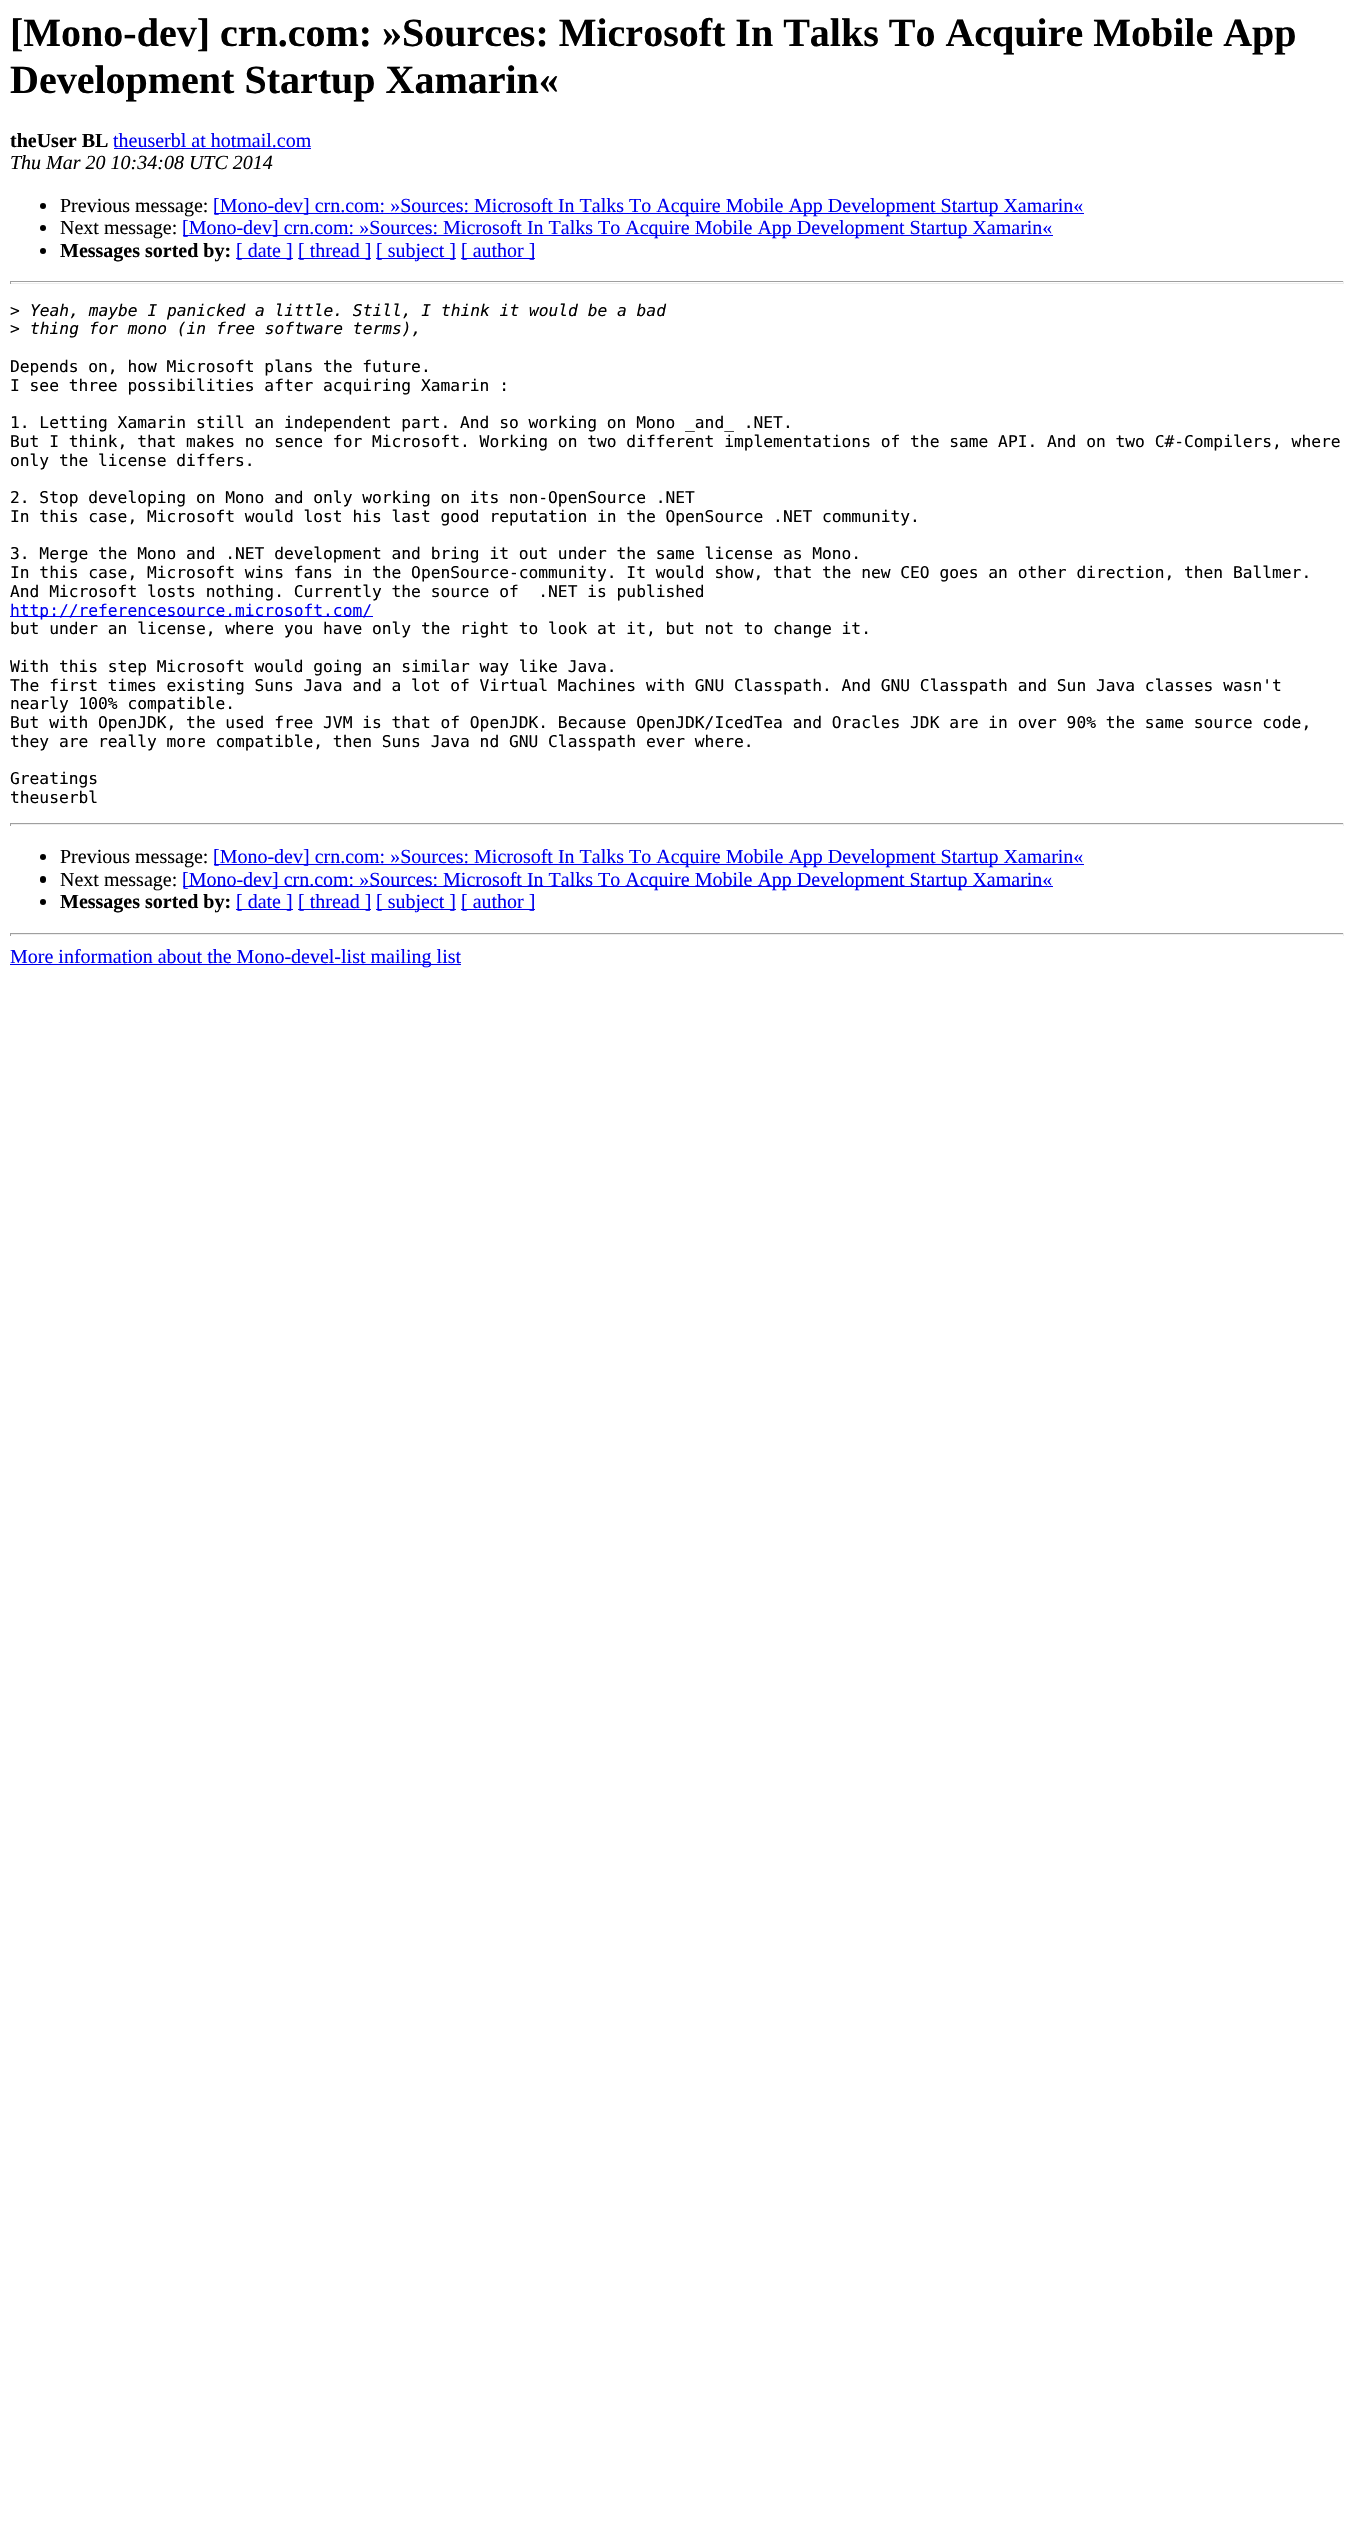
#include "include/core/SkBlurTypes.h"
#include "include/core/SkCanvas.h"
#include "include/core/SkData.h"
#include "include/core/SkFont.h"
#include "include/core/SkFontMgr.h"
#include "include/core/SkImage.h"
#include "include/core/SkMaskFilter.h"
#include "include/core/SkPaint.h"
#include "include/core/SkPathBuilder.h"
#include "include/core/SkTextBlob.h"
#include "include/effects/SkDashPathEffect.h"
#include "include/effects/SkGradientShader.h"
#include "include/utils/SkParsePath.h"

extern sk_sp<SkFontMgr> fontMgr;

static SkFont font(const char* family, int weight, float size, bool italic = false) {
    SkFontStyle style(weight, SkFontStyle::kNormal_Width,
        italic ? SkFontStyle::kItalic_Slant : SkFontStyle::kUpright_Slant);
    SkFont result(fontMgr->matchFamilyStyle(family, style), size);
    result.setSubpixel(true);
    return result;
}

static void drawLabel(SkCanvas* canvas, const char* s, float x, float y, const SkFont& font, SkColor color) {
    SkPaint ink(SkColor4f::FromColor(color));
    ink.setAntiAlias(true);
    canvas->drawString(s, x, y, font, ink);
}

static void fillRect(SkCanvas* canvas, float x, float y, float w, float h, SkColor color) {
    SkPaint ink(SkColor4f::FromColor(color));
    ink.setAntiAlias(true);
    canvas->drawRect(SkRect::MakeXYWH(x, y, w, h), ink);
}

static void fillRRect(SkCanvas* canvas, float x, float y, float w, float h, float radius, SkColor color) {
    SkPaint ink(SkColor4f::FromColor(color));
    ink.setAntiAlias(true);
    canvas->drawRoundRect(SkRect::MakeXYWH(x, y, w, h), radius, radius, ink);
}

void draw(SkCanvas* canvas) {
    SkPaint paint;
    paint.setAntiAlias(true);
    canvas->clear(0xFFFFFFFF);
    SkFont font1 = font("Liberation Serif", 700, 40);
    drawLabel(canvas, "[Mono-dev] crn.com: »Sources: Microsoft In Talks To Acquire Mobile App", 10, 46, font1, 0xFF000000);
    drawLabel(canvas, "Development Startup Xamarin«", 10, 93, font1, 0xFF000000);
    SkFont font2 = font("Liberation Serif", 700, 20);
    drawLabel(canvas, "theUser BL", 10, 147, font2, 0xFF000000);
    SkFont font3 = font("Liberation Serif", 400, 20);
    drawLabel(canvas, "theuserbl at hotmail.com", 113, 147, font3, 0xFF0000EE);
    fillRect(canvas, 114, 148, 197, 1, 0xFF0000EE);
    SkFont font4 = font("Liberation Serif", 400, 20, true);
    drawLabel(canvas, "Thu Mar 20 10:34:08 UTC 2014", 10, 169, font4, 0xFF000000);
    paint.setColor(0xFF000000);
    canvas->drawCircle(43, 206, 3, paint);
    drawLabel(canvas, "Previous message:", 60, 212, font3, 0xFF000000);
    fillRect(canvas, 214, 213, 870, 1, 0xFF0000EE);
    drawLabel(canvas, "[Mono-dev] crn.com: »Sources: Microsoft In Talks To Acquire Mobile App Development Startup Xamarin«", 213, 212, font3, 0xFF0000EE);
    canvas->drawCircle(43, 228, 3, paint);
    drawLabel(canvas, "Next message:", 60, 234, font3, 0xFF000000);
    fillRect(canvas, 183, 235, 870, 1, 0xFF0000EE);
    drawLabel(canvas, "[Mono-dev] crn.com: »Sources: Microsoft In Talks To Acquire Mobile App Development Startup Xamarin«", 182, 234, font3, 0xFF0000EE);
    canvas->drawCircle(43, 251, 3, paint);
    drawLabel(canvas, "Messages sorted by:", 60, 257, font2, 0xFF000000);
    fillRect(canvas, 236, 258, 57, 1, 0xFF0000EE);
    drawLabel(canvas, "[ date ]", 236, 257, font3, 0xFF0000EE);
    fillRect(canvas, 298, 258, 73, 1, 0xFF0000EE);
    drawLabel(canvas, "[ thread ]", 298, 257, font3, 0xFF0000EE);
    fillRect(canvas, 376, 258, 80, 1, 0xFF0000EE);
    drawLabel(canvas, "[ subject ]", 376, 257, font3, 0xFF0000EE);
    fillRect(canvas, 461, 258, 74, 1, 0xFF0000EE);
    drawLabel(canvas, "[ author ]", 461, 257, font3, 0xFF0000EE);
    fillRect(canvas, 10, 281, 1334, 1, 0xFF9F9F9F);
    fillRect(canvas, 1343, 281, 1, 3, 0xFFEEEEEE);
    fillRect(canvas, 10, 283, 1334, 1, 0xFFEEEEEE);
    fillRect(canvas, 10, 281, 1, 3, 0xFF9F9F9F);
    SkFont font5 = font("DejaVu Sans Mono", 400, 16.25f);
    drawLabel(canvas, ">", 10, 316, font5, 0xFF000000);
    SkFont font6 = font("DejaVu Sans Mono", 400, 16.25f, true);
    drawLabel(canvas, "Yeah, maybe I panicked a little. Still, I think it would be a bad", 30, 316, font6, 0xFF000000);
    drawLabel(canvas, ">", 10, 334, font5, 0xFF000000);
    drawLabel(canvas, "thing for mono (in free software terms),", 30, 334, font6, 0xFF000000);
    drawLabel(canvas, "Depends on, how Microsoft plans the future.", 10, 372, font5, 0xFF000000);
    drawLabel(canvas, "I see three possibilities after acquiring Xamarin :", 10, 391, font5, 0xFF000000);
    drawLabel(canvas, "1. Letting Xamarin still an independent part. And so working on Mono _and_ .NET.", 10, 428, font5, 0xFF000000);
    drawLabel(canvas, "But I think, that makes no sence for Microsoft. Working on two different implementations of the same API. And on two C#-Compilers, where", 10, 447, font5, 0xFF000000);
    drawLabel(canvas, "only the license differs.", 10, 466, font5, 0xFF000000);
    drawLabel(canvas, "2. Stop developing on Mono and only working on its non-OpenSource .NET", 10, 503, font5, 0xFF000000);
    drawLabel(canvas, "In this case, Microsoft would lost his last good reputation in the OpenSource .NET community.", 10, 522, font5, 0xFF000000);
    drawLabel(canvas, "3. Merge the Mono and .NET development and bring it out under the same license as Mono.", 10, 559, font5, 0xFF000000);
    drawLabel(canvas, "In this case, Microsoft wins fans in the OpenSource-community. It would show, that the new CEO goes an other direction, then Ballmer.", 10, 578, font5, 0xFF000000);
    drawLabel(canvas, "And Microsoft losts nothing. Currently the source of  .NET is published", 10, 597, font5, 0xFF000000);
    fillRect(canvas, 10, 616, 363, 1, 0xFF0000EE);
    drawLabel(canvas, "http://referencesource.microsoft.com/", 10, 616, font5, 0xFF0000EE);
    drawLabel(canvas, "but under an license, where you have only the right to look at it, but not to change it.", 10, 634, font5, 0xFF000000);
    drawLabel(canvas, "With this step Microsoft would going an similar way like Java.", 10, 672, font5, 0xFF000000);
    drawLabel(canvas, "The first times existing Suns Java and a lot of Virtual Machines with GNU Classpath. And GNU Classpath and Sun Java classes wasn't", 10, 691, font5, 0xFF000000);
    drawLabel(canvas, "nearly 100% compatible.", 10, 709, font5, 0xFF000000);
    drawLabel(canvas, "But with OpenJDK, the used free JVM is that of OpenJDK. Because OpenJDK/IcedTea and Oracles JDK are in over 90% the same source code,", 10, 728, font5, 0xFF000000);
    drawLabel(canvas, "they are really more compatible, then Suns Java nd GNU Classpath ever where.", 10, 747, font5, 0xFF000000);
    drawLabel(canvas, "Greatings", 10, 784, font5, 0xFF000000);
    drawLabel(canvas, "theuserbl", 10, 803, font5, 0xFF000000);
    fillRect(canvas, 10, 823, 1334, 1, 0xFF9F9F9F);
    fillRect(canvas, 1343, 823, 1, 3, 0xFFEEEEEE);
    fillRect(canvas, 10, 824, 1334, 1, 0xFFEEEEEE);
    fillRect(canvas, 10, 823, 1, 3, 0xFF9F9F9F);
    canvas->drawCircle(43, 857, 3, paint);
    drawLabel(canvas, "Previous message:", 60, 863, font3, 0xFF000000);
    fillRect(canvas, 214, 864, 870, 1, 0xFF0000EE);
    drawLabel(canvas, "[Mono-dev] crn.com: »Sources: Microsoft In Talks To Acquire Mobile App Development Startup Xamarin«", 213, 863, font3, 0xFF0000EE);
    fillRRect(canvas, 40, 876, 6, 7, 3, 0xFF000000);
    drawLabel(canvas, "Next message:", 60, 886, font3, 0xFF000000);
    fillRect(canvas, 183, 886, 870, 1, 0xFF0000EE);
    drawLabel(canvas, "[Mono-dev] crn.com: »Sources: Microsoft In Talks To Acquire Mobile App Development Startup Xamarin«", 182, 886, font3, 0xFF0000EE);
    canvas->drawCircle(43, 902, 3, paint);
    drawLabel(canvas, "Messages sorted by:", 60, 908, font2, 0xFF000000);
    fillRect(canvas, 236, 909, 57, 1, 0xFF0000EE);
    drawLabel(canvas, "[ date ]", 236, 908, font3, 0xFF0000EE);
    fillRect(canvas, 298, 909, 73, 1, 0xFF0000EE);
    drawLabel(canvas, "[ thread ]", 298, 908, font3, 0xFF0000EE);
    fillRect(canvas, 376, 909, 80, 1, 0xFF0000EE);
    drawLabel(canvas, "[ subject ]", 376, 908, font3, 0xFF0000EE);
    fillRect(canvas, 461, 909, 74, 1, 0xFF0000EE);
    drawLabel(canvas, "[ author ]", 461, 908, font3, 0xFF0000EE);
    fillRect(canvas, 10, 933, 1334, 1, 0xFF9F9F9F);
    fillRect(canvas, 1343, 933, 1, 3, 0xFFEEEEEE);
    fillRect(canvas, 10, 934, 1334, 1, 0xFFEEEEEE);
    fillRect(canvas, 10, 933, 1, 3, 0xFF9F9F9F);
    fillRect(canvas, 10, 964, 451, 1, 0xFF0000EE);
    drawLabel(canvas, "More information about the Mono-devel-list mailing list", 10, 963, font3, 0xFF0000EE);
}
